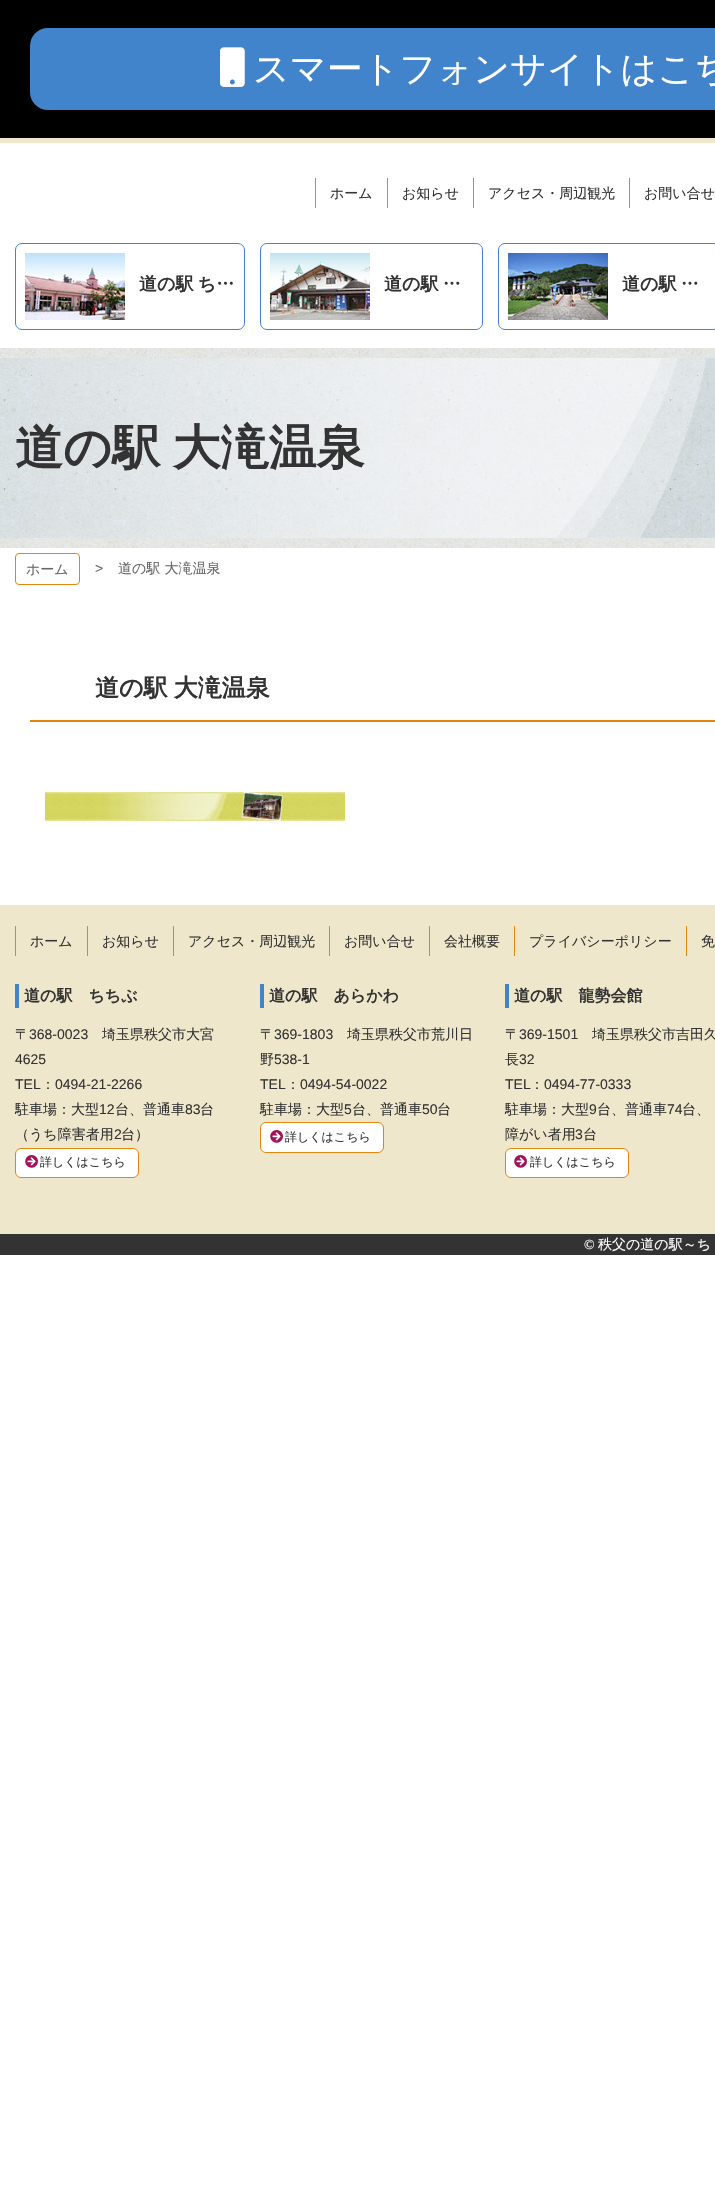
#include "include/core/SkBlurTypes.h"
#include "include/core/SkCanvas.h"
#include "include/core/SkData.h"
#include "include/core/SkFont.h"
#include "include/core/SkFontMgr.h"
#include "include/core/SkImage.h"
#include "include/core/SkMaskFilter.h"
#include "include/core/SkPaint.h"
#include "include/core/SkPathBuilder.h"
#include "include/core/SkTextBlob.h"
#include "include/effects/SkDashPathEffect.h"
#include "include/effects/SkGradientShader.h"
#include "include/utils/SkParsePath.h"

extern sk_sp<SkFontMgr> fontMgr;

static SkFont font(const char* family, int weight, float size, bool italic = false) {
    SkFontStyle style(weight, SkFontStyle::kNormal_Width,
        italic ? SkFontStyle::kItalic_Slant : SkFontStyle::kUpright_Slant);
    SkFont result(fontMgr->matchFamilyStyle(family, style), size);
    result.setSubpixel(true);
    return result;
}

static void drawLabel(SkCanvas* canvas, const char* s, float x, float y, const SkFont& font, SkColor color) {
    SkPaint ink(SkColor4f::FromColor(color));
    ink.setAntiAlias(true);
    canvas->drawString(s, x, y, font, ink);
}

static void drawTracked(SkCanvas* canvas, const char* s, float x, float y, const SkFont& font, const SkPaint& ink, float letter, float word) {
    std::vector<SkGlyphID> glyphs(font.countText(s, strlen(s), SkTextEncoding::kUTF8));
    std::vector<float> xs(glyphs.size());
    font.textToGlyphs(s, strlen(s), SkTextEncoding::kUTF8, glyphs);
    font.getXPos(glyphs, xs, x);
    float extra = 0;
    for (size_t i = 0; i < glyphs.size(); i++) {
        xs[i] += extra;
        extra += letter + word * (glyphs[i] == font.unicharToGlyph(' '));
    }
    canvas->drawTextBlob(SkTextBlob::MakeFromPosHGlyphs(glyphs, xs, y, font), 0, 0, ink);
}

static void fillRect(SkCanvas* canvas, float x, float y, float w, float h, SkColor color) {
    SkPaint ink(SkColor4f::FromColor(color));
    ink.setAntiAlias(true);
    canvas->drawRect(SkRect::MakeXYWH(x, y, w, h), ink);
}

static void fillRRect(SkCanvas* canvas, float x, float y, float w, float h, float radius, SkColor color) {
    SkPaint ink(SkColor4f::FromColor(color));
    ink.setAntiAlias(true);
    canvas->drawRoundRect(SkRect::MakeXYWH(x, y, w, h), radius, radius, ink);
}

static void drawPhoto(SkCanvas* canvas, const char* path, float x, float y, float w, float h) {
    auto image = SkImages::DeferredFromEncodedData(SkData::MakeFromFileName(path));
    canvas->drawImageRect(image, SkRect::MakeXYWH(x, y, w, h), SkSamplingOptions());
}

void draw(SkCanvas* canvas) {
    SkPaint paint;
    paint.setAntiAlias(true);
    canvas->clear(0xFFFFFFFF);
    fillRect(canvas, 0, 0, 715, 138, 0xFF000000);
    fillRRect(canvas, 30, 28, 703, 82, 18, 0xFF4284CC);
    drawPhoto(canvas, "assets/img1.png", 220, 47, 25, 40);
    SkFont font1 = font("WenQuanYi Zen Hei", 500, 36);
    drawLabel(canvas, "スマートフォンサイトはこち", 253, 81, font1, 0xFFFFFFFF);
    fillRect(canvas, 0, 138, 715, 5, 0xFFEFE7CB);
    fillRect(canvas, 315, 178, 1, 30, 0xFFE2860E);
    SkFont font2 = font("WenQuanYi Zen Hei", 500, 14);
    drawLabel(canvas, "ホーム", 330, 198, font2, 0xFF333333);
    fillRect(canvas, 387, 178, 1, 30, 0xFFE2860E);
    drawLabel(canvas, "お知らせ", 402, 198, font2, 0xFF333333);
    fillRect(canvas, 473, 178, 1, 30, 0xFFE2860E);
    drawLabel(canvas, "アクセス・周辺観光", 488, 198, font2, 0xFF333333);
    fillRect(canvas, 629, 178, 1, 30, 0xFFE2860E);
    drawLabel(canvas, "お問い合せ", 644, 198, font2, 0xFF333333);
    paint.setStroke(true);
    paint.setStrokeWidth(1);
    paint.setColor(0xFF4284CC);
    canvas->drawRoundRect(SkRect::MakeXYWH(15.5f, 243.5f, 229, 86), 6.5f, 6.5f, paint);
    drawPhoto(canvas, "assets/img2.png", 25, 253, 100, 67);
    SkFont font3 = font("WenQuanYi Zen Hei", 700, 18);
    paint.setStroke(false);
    paint.setColor(0xFF333333);
    drawTracked(canvas, "道の駅 ち…", 139, 290, font3, paint, 0, -1);
    paint.setStroke(true);
    paint.setColor(0xFF4284CC);
    canvas->drawRoundRect(SkRect::MakeXYWH(260.5f, 243.5f, 222, 86), 6.5f, 6.5f, paint);
    drawPhoto(canvas, "assets/img3.png", 270, 253, 100, 67);
    paint.setStroke(false);
    paint.setColor(0xFF333333);
    drawTracked(canvas, "道の駅 …", 384, 290, font3, paint, 0, -1);
    paint.setStroke(true);
    paint.setColor(0xFF4284CC);
    canvas->drawRoundRect(SkRect::MakeXYWH(498.5f, 243.5f, 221, 86), 6.5f, 6.5f, paint);
    drawPhoto(canvas, "assets/img4.png", 508, 253, 100, 67);
    paint.setStroke(false);
    paint.setColor(0xFF333333);
    drawTracked(canvas, "道の駅 …", 622, 290, font3, paint, 0, -1);
    drawPhoto(canvas, "assets/img5.png", 0, 348, 715, 200);
    SkFont font4 = font("WenQuanYi Zen Hei", 700, 48);
    drawTracked(canvas, "道の駅 大滝温泉", 15, 464, font4, paint, 0, -2);
    paint.setStroke(true);
    paint.setColor(0xFFE2860E);
    canvas->drawRoundRect(SkRect::MakeXYWH(15.5f, 553.5f, 64, 31), 3.5f, 3.5f, paint);
    drawLabel(canvas, "ホーム", 26, 574, font2, 0xFF666666);
    SkFont font5 = font("Liberation Sans", 400, 14);
    drawLabel(canvas, ">", 95, 573, font5, 0xFF666666);
    drawLabel(canvas, "道の駅 大滝温泉", 118, 573, font2, 0xFF666666);
    fillRect(canvas, 30, 720, 685, 2, 0xFFE2860E);
    SkFont font6 = font("WenQuanYi Zen Hei", 700, 24);
    paint.setStroke(false);
    paint.setColor(0xFF333333);
    drawTracked(canvas, "道の駅 大滝温泉", 95, 696, font6, paint, 0, -1);
    drawPhoto(canvas, "assets/img6.png", 45, 792, 300, 29);
    fillRect(canvas, 0, 905, 715, 329, 0xFFEFE7CB);
    fillRect(canvas, 15, 926, 1, 30, 0xFFE2860E);
    drawLabel(canvas, "ホーム", 30, 946, font2, 0xFF333333);
    fillRect(canvas, 87, 926, 1, 30, 0xFFE2860E);
    drawLabel(canvas, "お知らせ", 102, 946, font2, 0xFF333333);
    fillRect(canvas, 173, 926, 1, 30, 0xFFE2860E);
    drawLabel(canvas, "アクセス・周辺観光", 188, 946, font2, 0xFF333333);
    fillRect(canvas, 329, 926, 1, 30, 0xFFE2860E);
    drawLabel(canvas, "お問い合せ", 344, 946, font2, 0xFF333333);
    fillRect(canvas, 429, 926, 1, 30, 0xFFE2860E);
    drawLabel(canvas, "会社概要", 444, 946, font2, 0xFF333333);
    fillRect(canvas, 514, 926, 1, 30, 0xFFE2860E);
    drawLabel(canvas, "プライバシーポリシー", 529, 946, font2, 0xFF333333);
    fillRect(canvas, 686, 926, 1, 30, 0xFFE2860E);
    drawLabel(canvas, "免", 701, 946, font2, 0xFF333333);
    fillRect(canvas, 15, 984, 4, 24, 0xFF4284CC);
    SkFont font7 = font("WenQuanYi Zen Hei", 700, 16);
    drawLabel(canvas, "道の駅　ちちぶ", 24, 1001, font7, 0xFF333333);
    drawLabel(canvas, "〒", 15, 1039, font2, 0xFF333333);
    drawLabel(canvas, "368-0023", 29, 1039, font5, 0xFF333333);
    drawLabel(canvas, "埼玉県秩父市大宮", 102, 1039, font2, 0xFF333333);
    drawLabel(canvas, "4625", 15, 1064, font5, 0xFF333333);
    drawLabel(canvas, "TEL", 15, 1089, font5, 0xFF333333);
    drawLabel(canvas, "：", 41, 1089, font2, 0xFF333333);
    drawLabel(canvas, "0494-21-2266", 55, 1089, font5, 0xFF333333);
    drawLabel(canvas, "駐車場：大型", 15, 1114, font2, 0xFF333333);
    drawLabel(canvas, "12", 99, 1114, font5, 0xFF333333);
    drawLabel(canvas, "台、普通車", 115, 1114, font2, 0xFF333333);
    drawLabel(canvas, "83", 185, 1114, font5, 0xFF333333);
    drawLabel(canvas, "台", 200, 1114, font2, 0xFF333333);
    drawLabel(canvas, "（うち障害者用", 15, 1139, font2, 0xFF333333);
    drawLabel(canvas, "2", 114, 1139, font5, 0xFF333333);
    drawLabel(canvas, "台）", 121, 1139, font2, 0xFF333333);
    paint.setColor(0xFFFFFFFF);
    canvas->drawRoundRect(SkRect::MakeXYWH(15.5f, 1148.5f, 123, 29), 5.5f, 5.5f, paint);
    paint.setStroke(true);
    paint.setColor(0xFFE2860E);
    canvas->drawRoundRect(SkRect::MakeXYWH(15.5f, 1148.5f, 123, 29), 5.5f, 5.5f, paint);
    drawPhoto(canvas, "assets/img7.png", 25, 1155, 13, 13);
    SkFont font8 = font("WenQuanYi Zen Hei", 500, 12);
    drawLabel(canvas, "詳しくはこちら", 40, 1166, font8, 0xFF333333);
    fillRect(canvas, 260, 984, 4, 24, 0xFF4284CC);
    drawLabel(canvas, "道の駅　あらかわ", 269, 1001, font7, 0xFF333333);
    drawLabel(canvas, "〒", 260, 1039, font2, 0xFF333333);
    drawLabel(canvas, "369-1803", 274, 1039, font5, 0xFF333333);
    drawLabel(canvas, "埼玉県秩父市荒川日", 347, 1039, font2, 0xFF333333);
    drawLabel(canvas, "野", 260, 1064, font2, 0xFF333333);
    drawLabel(canvas, "538-1", 274, 1064, font5, 0xFF333333);
    drawLabel(canvas, "TEL", 260, 1089, font5, 0xFF333333);
    drawLabel(canvas, "：", 286, 1089, font2, 0xFF333333);
    drawLabel(canvas, "0494-54-0022", 300, 1089, font5, 0xFF333333);
    drawLabel(canvas, "駐車場：大型", 260, 1114, font2, 0xFF333333);
    drawLabel(canvas, "5", 344, 1114, font5, 0xFF333333);
    drawLabel(canvas, "台、普通車", 352, 1114, font2, 0xFF333333);
    drawLabel(canvas, "50", 422, 1114, font5, 0xFF333333);
    drawLabel(canvas, "台", 437, 1114, font2, 0xFF333333);
    paint.setStroke(false);
    paint.setColor(0xFFFFFFFF);
    canvas->drawRoundRect(SkRect::MakeXYWH(260.5f, 1122.5f, 123, 30), 5.5f, 5.5f, paint);
    paint.setStroke(true);
    paint.setColor(0xFFE2860E);
    canvas->drawRoundRect(SkRect::MakeXYWH(260.5f, 1122.5f, 123, 30), 5.5f, 5.5f, paint);
    drawPhoto(canvas, "assets/img7.png", 270, 1130, 13, 13);
    drawLabel(canvas, "詳しくはこちら", 285, 1141, font8, 0xFF333333);
    fillRect(canvas, 505, 984, 4, 24, 0xFF4284CC);
    drawLabel(canvas, "道の駅　龍勢会館", 514, 1001, font7, 0xFF333333);
    drawLabel(canvas, "〒", 505, 1039, font2, 0xFF333333);
    drawLabel(canvas, "369-1501", 519, 1039, font5, 0xFF333333);
    drawLabel(canvas, "埼玉県秩父市吉田久", 592, 1039, font2, 0xFF333333);
    drawLabel(canvas, "長", 505, 1064, font2, 0xFF333333);
    drawLabel(canvas, "32", 519, 1064, font5, 0xFF333333);
    drawLabel(canvas, "TEL", 505, 1089, font5, 0xFF333333);
    drawLabel(canvas, "：", 530, 1089, font2, 0xFF333333);
    drawLabel(canvas, "0494-77-0333", 544, 1089, font5, 0xFF333333);
    drawLabel(canvas, "駐車場：大型", 505, 1114, font2, 0xFF333333);
    drawLabel(canvas, "9", 589, 1114, font5, 0xFF333333);
    drawLabel(canvas, "台、普通車", 597, 1114, font2, 0xFF333333);
    drawLabel(canvas, "74", 667, 1114, font5, 0xFF333333);
    drawLabel(canvas, "台、", 682, 1114, font2, 0xFF333333);
    drawLabel(canvas, "障がい者用", 505, 1139, font2, 0xFF333333);
    drawLabel(canvas, "3", 575, 1139, font5, 0xFF333333);
    drawLabel(canvas, "台", 583, 1139, font2, 0xFF333333);
    paint.setStroke(false);
    paint.setColor(0xFFFFFFFF);
    canvas->drawRoundRect(SkRect::MakeXYWH(505.5f, 1148.5f, 123, 29), 5.5f, 5.5f, paint);
    paint.setStroke(true);
    paint.setColor(0xFFE2860E);
    canvas->drawRoundRect(SkRect::MakeXYWH(505.5f, 1148.5f, 123, 29), 5.5f, 5.5f, paint);
    drawPhoto(canvas, "assets/img7.png", 514, 1155, 13, 13);
    drawLabel(canvas, "詳しくはこちら", 530, 1166, font8, 0xFF333333);
    fillRect(canvas, 0, 1234, 715, 21, 0xFF333333);
    SkFont font9 = font("Liberation Serif", 400, 14);
    drawLabel(canvas, "©", 584, 1249, font9, 0xFFFFFFFF);
    drawLabel(canvas, "秩父の道の駅～ち", 598, 1249, font2, 0xFFFFFFFF);
}
